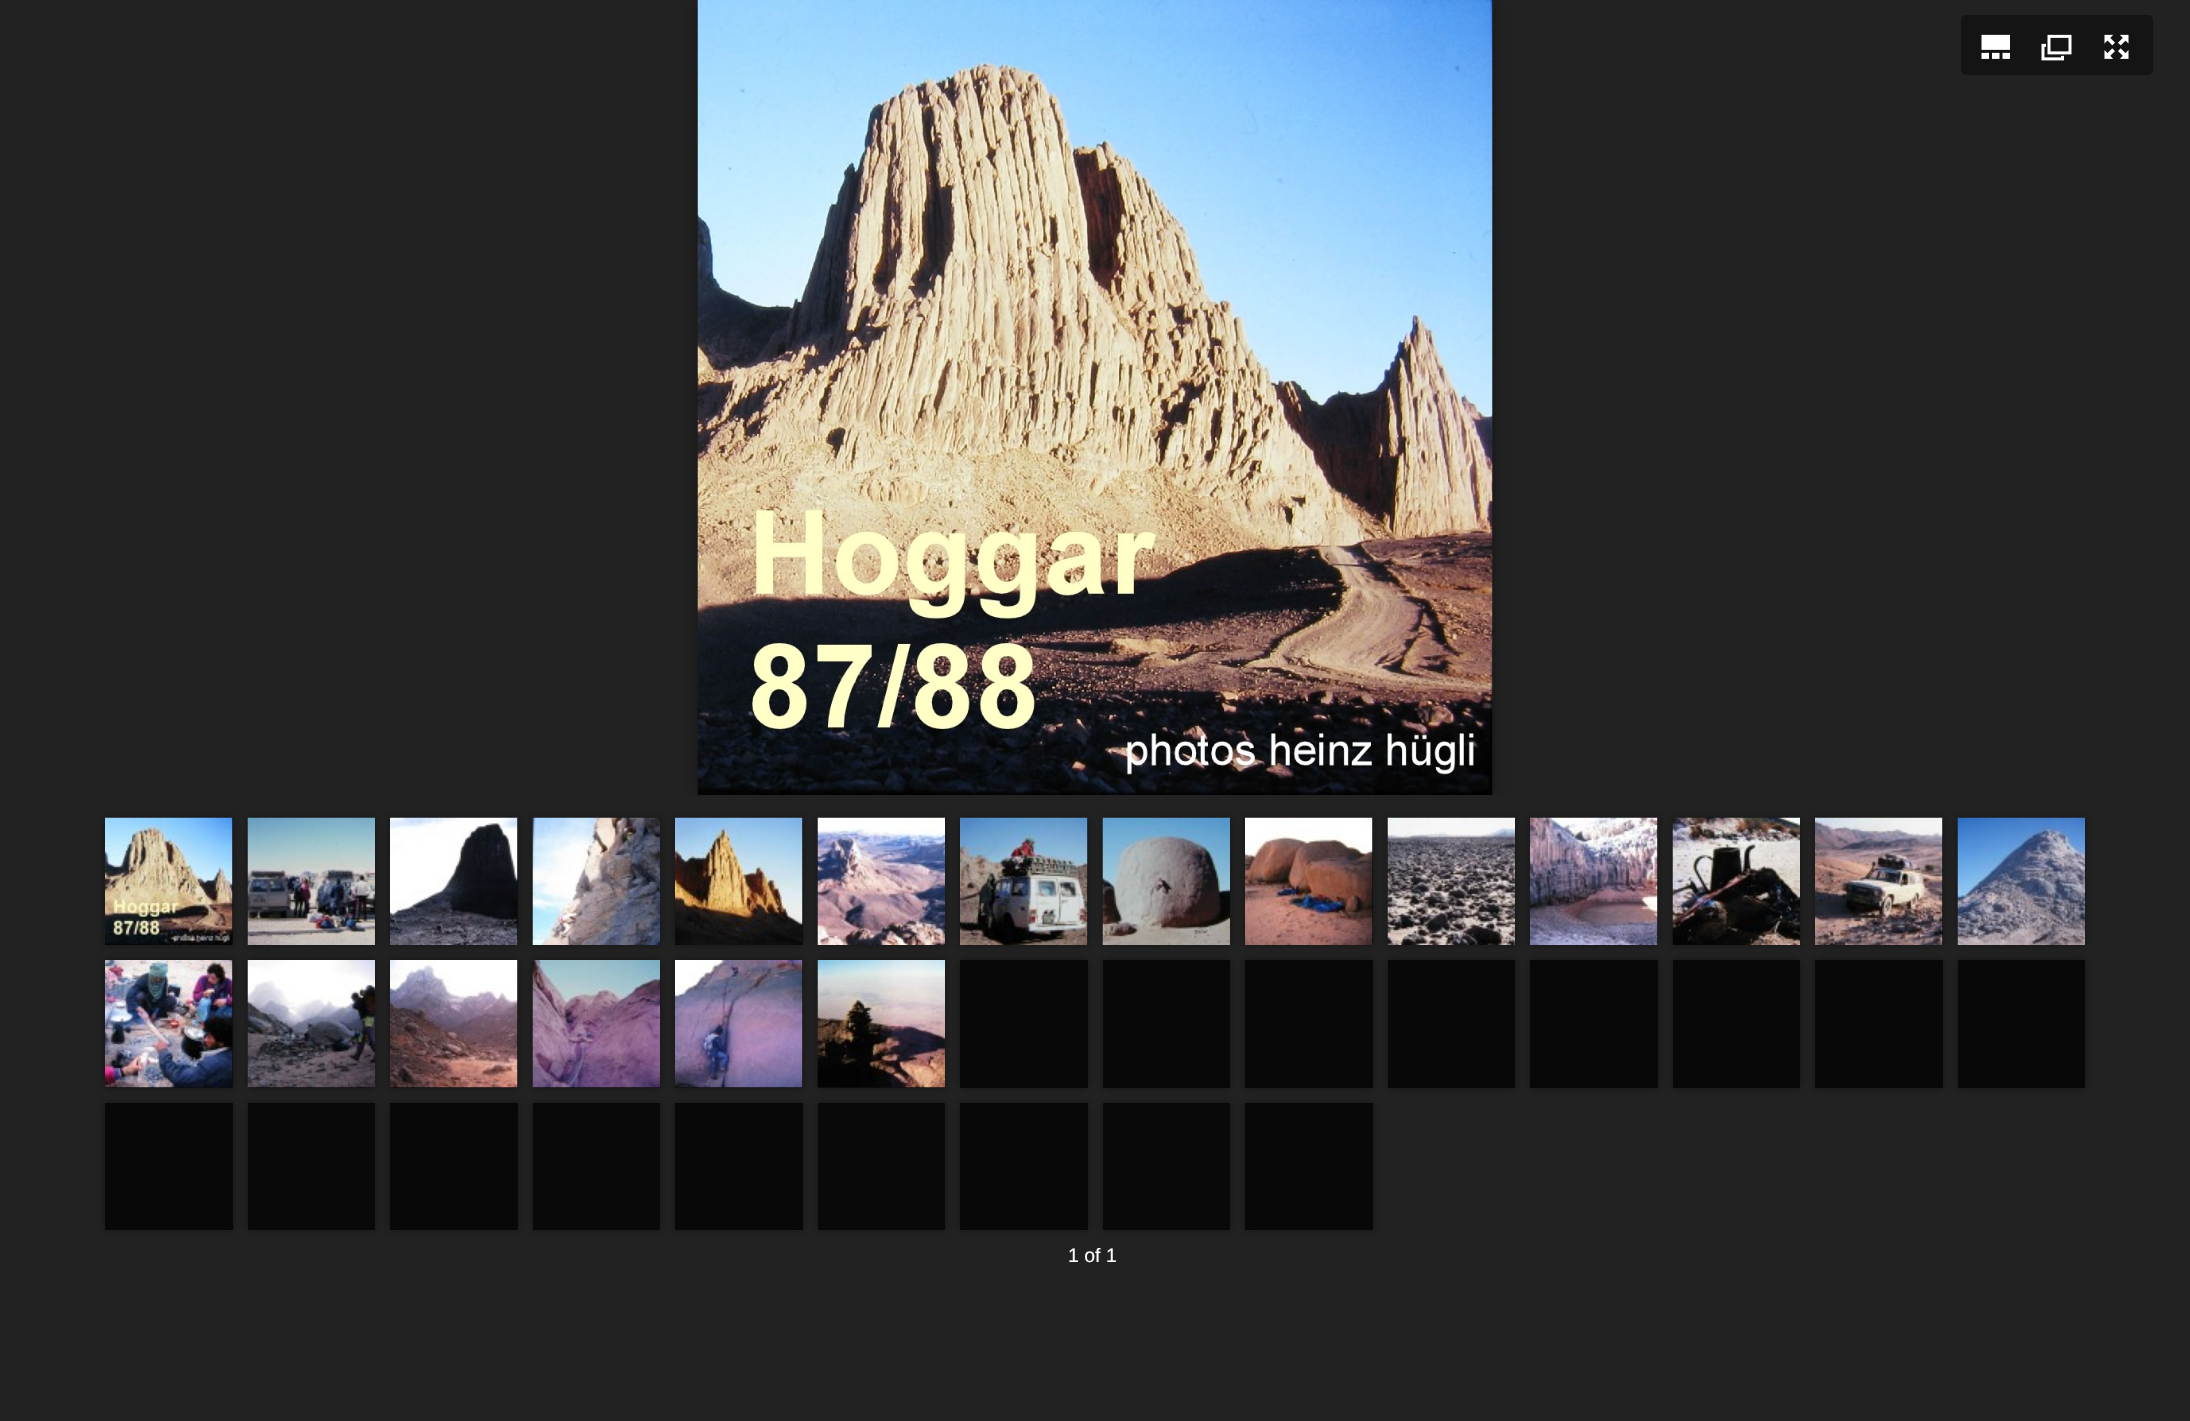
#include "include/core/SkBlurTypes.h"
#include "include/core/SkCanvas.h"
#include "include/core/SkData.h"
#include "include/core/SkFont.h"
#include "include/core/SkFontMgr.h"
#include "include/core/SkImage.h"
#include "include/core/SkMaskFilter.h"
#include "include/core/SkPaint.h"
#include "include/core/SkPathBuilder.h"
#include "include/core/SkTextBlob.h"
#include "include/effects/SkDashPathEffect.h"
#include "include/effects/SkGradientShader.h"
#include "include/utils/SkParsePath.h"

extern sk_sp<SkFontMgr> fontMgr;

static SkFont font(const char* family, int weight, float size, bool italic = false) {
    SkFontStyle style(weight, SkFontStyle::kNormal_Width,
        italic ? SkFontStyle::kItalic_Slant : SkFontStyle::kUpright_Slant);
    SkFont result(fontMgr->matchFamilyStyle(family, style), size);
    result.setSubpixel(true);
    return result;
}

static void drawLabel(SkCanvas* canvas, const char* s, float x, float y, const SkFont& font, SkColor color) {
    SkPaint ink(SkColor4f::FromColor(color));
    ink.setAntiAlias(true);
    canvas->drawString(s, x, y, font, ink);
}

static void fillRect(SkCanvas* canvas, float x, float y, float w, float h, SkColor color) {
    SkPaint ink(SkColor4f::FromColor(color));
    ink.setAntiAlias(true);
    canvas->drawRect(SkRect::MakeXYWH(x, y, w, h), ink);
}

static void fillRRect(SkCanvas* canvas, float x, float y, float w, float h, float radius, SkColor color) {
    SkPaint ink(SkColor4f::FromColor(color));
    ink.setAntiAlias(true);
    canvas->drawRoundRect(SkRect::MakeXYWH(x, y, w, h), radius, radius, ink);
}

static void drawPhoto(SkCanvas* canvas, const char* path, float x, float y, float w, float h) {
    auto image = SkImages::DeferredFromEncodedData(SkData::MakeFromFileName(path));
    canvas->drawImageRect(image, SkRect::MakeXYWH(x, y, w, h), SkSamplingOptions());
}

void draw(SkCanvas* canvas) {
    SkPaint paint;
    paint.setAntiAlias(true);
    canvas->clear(0xFF222222);
    canvas->save();
    canvas->clipRect(SkRect::MakeXYWH(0, 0, 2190, 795));
    paint.setColor(0x66000000);
    paint.setMaskFilter(SkMaskFilter::MakeBlur(kNormal_SkBlurStyle, 7.5f));
    canvas->drawRect(SkRect::MakeXYWH(698, 0, 795, 795), paint);
    paint.setMaskFilter(nullptr);
    canvas->restore();
    drawPhoto(canvas, "assets/img1.png", 697, 0, 796, 795);
    fillRRect(canvas, 1961, 15, 192, 60, 5, 0xFF141414);
    drawPhoto(canvas, "assets/img2.png", 1981, 34, 29, 25);
    drawPhoto(canvas, "assets/img3.png", 2041, 34, 31, 27);
    drawPhoto(canvas, "assets/img4.png", 2104, 34, 25, 25);
    paint.setMaskFilter(SkMaskFilter::MakeBlur(kNormal_SkBlurStyle, 4));
    canvas->drawRect(SkRect::MakeXYWH(105, 818, 128, 127), paint);
    paint.setMaskFilter(nullptr);
    fillRect(canvas, 232, 818, 1, 127, 0x80000000);
    drawPhoto(canvas, "assets/img5.png", 105, 817, 128, 128);
    paint.setMaskFilter(SkMaskFilter::MakeBlur(kNormal_SkBlurStyle, 4));
    canvas->drawRect(SkRect::MakeXYWH(248, 818, 127, 127), paint);
    paint.setMaskFilter(nullptr);
    drawPhoto(canvas, "assets/img6.png", 247, 817, 128, 128);
    paint.setMaskFilter(SkMaskFilter::MakeBlur(kNormal_SkBlurStyle, 4));
    canvas->drawRect(SkRect::MakeXYWH(390, 818, 128, 127), paint);
    paint.setMaskFilter(nullptr);
    fillRect(canvas, 517, 818, 1, 127, 0x80000000);
    drawPhoto(canvas, "assets/img7.png", 390, 817, 128, 128);
    paint.setMaskFilter(SkMaskFilter::MakeBlur(kNormal_SkBlurStyle, 4));
    canvas->drawRect(SkRect::MakeXYWH(533, 818, 127, 127), paint);
    paint.setMaskFilter(nullptr);
    drawPhoto(canvas, "assets/img8.png", 532, 817, 128, 128);
    paint.setMaskFilter(SkMaskFilter::MakeBlur(kNormal_SkBlurStyle, 4));
    canvas->drawRect(SkRect::MakeXYWH(675, 818, 128, 127), paint);
    paint.setMaskFilter(nullptr);
    fillRect(canvas, 802, 818, 1, 127, 0x80000000);
    drawPhoto(canvas, "assets/img9.png", 675, 817, 128, 128);
    paint.setMaskFilter(SkMaskFilter::MakeBlur(kNormal_SkBlurStyle, 4));
    canvas->drawRect(SkRect::MakeXYWH(818, 818, 127, 127), paint);
    paint.setMaskFilter(nullptr);
    drawPhoto(canvas, "assets/img10.png", 817, 817, 128, 128);
    paint.setMaskFilter(SkMaskFilter::MakeBlur(kNormal_SkBlurStyle, 4));
    canvas->drawRect(SkRect::MakeXYWH(960, 818, 128, 127), paint);
    paint.setMaskFilter(nullptr);
    fillRect(canvas, 1087, 818, 1, 127, 0x80000000);
    drawPhoto(canvas, "assets/img11.png", 960, 817, 128, 128);
    paint.setMaskFilter(SkMaskFilter::MakeBlur(kNormal_SkBlurStyle, 4));
    canvas->drawRect(SkRect::MakeXYWH(1103, 818, 127, 127), paint);
    paint.setMaskFilter(nullptr);
    drawPhoto(canvas, "assets/img12.png", 1102, 817, 128, 128);
    paint.setMaskFilter(SkMaskFilter::MakeBlur(kNormal_SkBlurStyle, 4));
    canvas->drawRect(SkRect::MakeXYWH(1245, 818, 128, 127), paint);
    paint.setMaskFilter(nullptr);
    fillRect(canvas, 1372, 818, 1, 127, 0x80000000);
    drawPhoto(canvas, "assets/img13.png", 1245, 817, 128, 128);
    paint.setMaskFilter(SkMaskFilter::MakeBlur(kNormal_SkBlurStyle, 4));
    canvas->drawRect(SkRect::MakeXYWH(1388, 818, 127, 127), paint);
    paint.setMaskFilter(nullptr);
    drawPhoto(canvas, "assets/img14.png", 1387, 817, 128, 128);
    paint.setMaskFilter(SkMaskFilter::MakeBlur(kNormal_SkBlurStyle, 4));
    canvas->drawRect(SkRect::MakeXYWH(1530, 818, 128, 127), paint);
    paint.setMaskFilter(nullptr);
    fillRect(canvas, 1657, 818, 1, 127, 0x80000000);
    drawPhoto(canvas, "assets/img15.png", 1530, 817, 128, 128);
    paint.setMaskFilter(SkMaskFilter::MakeBlur(kNormal_SkBlurStyle, 4));
    canvas->drawRect(SkRect::MakeXYWH(1673, 818, 127, 127), paint);
    paint.setMaskFilter(nullptr);
    drawPhoto(canvas, "assets/img16.png", 1672, 817, 128, 128);
    paint.setMaskFilter(SkMaskFilter::MakeBlur(kNormal_SkBlurStyle, 4));
    canvas->drawRect(SkRect::MakeXYWH(1815, 818, 128, 127), paint);
    paint.setMaskFilter(nullptr);
    fillRect(canvas, 1942, 818, 1, 127, 0x80000000);
    drawPhoto(canvas, "assets/img17.png", 1815, 817, 128, 128);
    paint.setMaskFilter(SkMaskFilter::MakeBlur(kNormal_SkBlurStyle, 4));
    canvas->drawRect(SkRect::MakeXYWH(1958, 818, 127, 127), paint);
    paint.setMaskFilter(nullptr);
    drawPhoto(canvas, "assets/img18.png", 1957, 817, 128, 128);
    paint.setMaskFilter(SkMaskFilter::MakeBlur(kNormal_SkBlurStyle, 4));
    canvas->drawRect(SkRect::MakeXYWH(105, 960, 128, 128), paint);
    paint.setMaskFilter(nullptr);
    fillRect(canvas, 105, 960, 128, 128, 0x80000000);
    drawPhoto(canvas, "assets/img19.png", 105, 960, 128, 128);
    paint.setMaskFilter(SkMaskFilter::MakeBlur(kNormal_SkBlurStyle, 4));
    canvas->drawRect(SkRect::MakeXYWH(248, 960, 127, 128), paint);
    paint.setMaskFilter(nullptr);
    fillRect(canvas, 248, 1087, 127, 1, 0x80000000);
    drawPhoto(canvas, "assets/img20.png", 247, 960, 128, 128);
    paint.setMaskFilter(SkMaskFilter::MakeBlur(kNormal_SkBlurStyle, 4));
    canvas->drawRect(SkRect::MakeXYWH(390, 960, 128, 128), paint);
    paint.setMaskFilter(nullptr);
    fillRect(canvas, 390, 960, 128, 128, 0x80000000);
    drawPhoto(canvas, "assets/img21.png", 390, 960, 128, 128);
    paint.setMaskFilter(SkMaskFilter::MakeBlur(kNormal_SkBlurStyle, 4));
    canvas->drawRect(SkRect::MakeXYWH(533, 960, 127, 128), paint);
    paint.setMaskFilter(nullptr);
    fillRect(canvas, 533, 1087, 127, 1, 0x80000000);
    drawPhoto(canvas, "assets/img22.png", 532, 960, 128, 128);
    paint.setMaskFilter(SkMaskFilter::MakeBlur(kNormal_SkBlurStyle, 4));
    canvas->drawRect(SkRect::MakeXYWH(675, 960, 128, 128), paint);
    paint.setMaskFilter(nullptr);
    fillRect(canvas, 675, 960, 128, 128, 0x80000000);
    drawPhoto(canvas, "assets/img23.png", 675, 960, 128, 128);
    paint.setMaskFilter(SkMaskFilter::MakeBlur(kNormal_SkBlurStyle, 4));
    canvas->drawRect(SkRect::MakeXYWH(818, 960, 127, 128), paint);
    paint.setMaskFilter(nullptr);
    fillRect(canvas, 818, 1087, 127, 1, 0x80000000);
    drawPhoto(canvas, "assets/img24.png", 817, 960, 128, 128);
    paint.setMaskFilter(SkMaskFilter::MakeBlur(kNormal_SkBlurStyle, 4));
    canvas->drawRect(SkRect::MakeXYWH(960, 960, 128, 128), paint);
    paint.setMaskFilter(nullptr);
    fillRect(canvas, 960, 960, 128, 128, 0xFF080808);
    paint.setMaskFilter(SkMaskFilter::MakeBlur(kNormal_SkBlurStyle, 4));
    canvas->drawRect(SkRect::MakeXYWH(1103, 960, 127, 128), paint);
    paint.setMaskFilter(nullptr);
    fillRect(canvas, 1103, 960, 127, 128, 0xFF080808);
    paint.setMaskFilter(SkMaskFilter::MakeBlur(kNormal_SkBlurStyle, 4));
    canvas->drawRect(SkRect::MakeXYWH(1245, 960, 128, 128), paint);
    paint.setMaskFilter(nullptr);
    fillRect(canvas, 1245, 960, 128, 128, 0xFF080808);
    paint.setMaskFilter(SkMaskFilter::MakeBlur(kNormal_SkBlurStyle, 4));
    canvas->drawRect(SkRect::MakeXYWH(1388, 960, 127, 128), paint);
    paint.setMaskFilter(nullptr);
    fillRect(canvas, 1388, 960, 127, 128, 0xFF080808);
    paint.setMaskFilter(SkMaskFilter::MakeBlur(kNormal_SkBlurStyle, 4));
    canvas->drawRect(SkRect::MakeXYWH(1530, 960, 128, 128), paint);
    paint.setMaskFilter(nullptr);
    fillRect(canvas, 1530, 960, 128, 128, 0xFF080808);
    paint.setMaskFilter(SkMaskFilter::MakeBlur(kNormal_SkBlurStyle, 4));
    canvas->drawRect(SkRect::MakeXYWH(1673, 960, 127, 128), paint);
    paint.setMaskFilter(nullptr);
    fillRect(canvas, 1673, 960, 127, 128, 0xFF080808);
    paint.setMaskFilter(SkMaskFilter::MakeBlur(kNormal_SkBlurStyle, 4));
    canvas->drawRect(SkRect::MakeXYWH(1815, 960, 128, 128), paint);
    paint.setMaskFilter(nullptr);
    fillRect(canvas, 1815, 960, 128, 128, 0xFF080808);
    paint.setMaskFilter(SkMaskFilter::MakeBlur(kNormal_SkBlurStyle, 4));
    canvas->drawRect(SkRect::MakeXYWH(1958, 960, 127, 128), paint);
    paint.setMaskFilter(nullptr);
    fillRect(canvas, 1958, 960, 127, 128, 0xFF080808);
    paint.setMaskFilter(SkMaskFilter::MakeBlur(kNormal_SkBlurStyle, 4));
    canvas->drawRect(SkRect::MakeXYWH(105, 1103, 128, 127), paint);
    paint.setMaskFilter(nullptr);
    fillRect(canvas, 105, 1103, 128, 127, 0xFF080808);
    paint.setMaskFilter(SkMaskFilter::MakeBlur(kNormal_SkBlurStyle, 4));
    canvas->drawRect(SkRect::MakeXYWH(248, 1103, 127, 127), paint);
    paint.setMaskFilter(nullptr);
    fillRect(canvas, 248, 1103, 127, 127, 0xFF090909);
    paint.setMaskFilter(SkMaskFilter::MakeBlur(kNormal_SkBlurStyle, 4));
    canvas->drawRect(SkRect::MakeXYWH(390, 1103, 128, 127), paint);
    paint.setMaskFilter(nullptr);
    fillRect(canvas, 390, 1103, 128, 127, 0xFF080808);
    paint.setMaskFilter(SkMaskFilter::MakeBlur(kNormal_SkBlurStyle, 4));
    canvas->drawRect(SkRect::MakeXYWH(533, 1103, 127, 127), paint);
    paint.setMaskFilter(nullptr);
    fillRect(canvas, 533, 1103, 127, 127, 0xFF090909);
    paint.setMaskFilter(SkMaskFilter::MakeBlur(kNormal_SkBlurStyle, 4));
    canvas->drawRect(SkRect::MakeXYWH(675, 1103, 128, 127), paint);
    paint.setMaskFilter(nullptr);
    fillRect(canvas, 675, 1103, 128, 127, 0xFF080808);
    paint.setMaskFilter(SkMaskFilter::MakeBlur(kNormal_SkBlurStyle, 4));
    canvas->drawRect(SkRect::MakeXYWH(818, 1103, 127, 127), paint);
    paint.setMaskFilter(nullptr);
    fillRect(canvas, 818, 1103, 127, 127, 0xFF090909);
    paint.setMaskFilter(SkMaskFilter::MakeBlur(kNormal_SkBlurStyle, 4));
    canvas->drawRect(SkRect::MakeXYWH(960, 1103, 128, 127), paint);
    paint.setMaskFilter(nullptr);
    fillRect(canvas, 960, 1103, 128, 127, 0xFF080808);
    paint.setMaskFilter(SkMaskFilter::MakeBlur(kNormal_SkBlurStyle, 4));
    canvas->drawRect(SkRect::MakeXYWH(1103, 1103, 127, 127), paint);
    paint.setMaskFilter(nullptr);
    fillRect(canvas, 1103, 1103, 127, 127, 0xFF090909);
    paint.setMaskFilter(SkMaskFilter::MakeBlur(kNormal_SkBlurStyle, 4));
    canvas->drawRect(SkRect::MakeXYWH(1245, 1103, 128, 127), paint);
    paint.setMaskFilter(nullptr);
    fillRect(canvas, 1245, 1103, 128, 127, 0xFF080808);
    SkFont font1 = font("Liberation Sans", 400, 19.5f);
    drawLabel(canvas, "1 of 1", 1068, 1262, font1, 0xFFFFFFFF);
}
